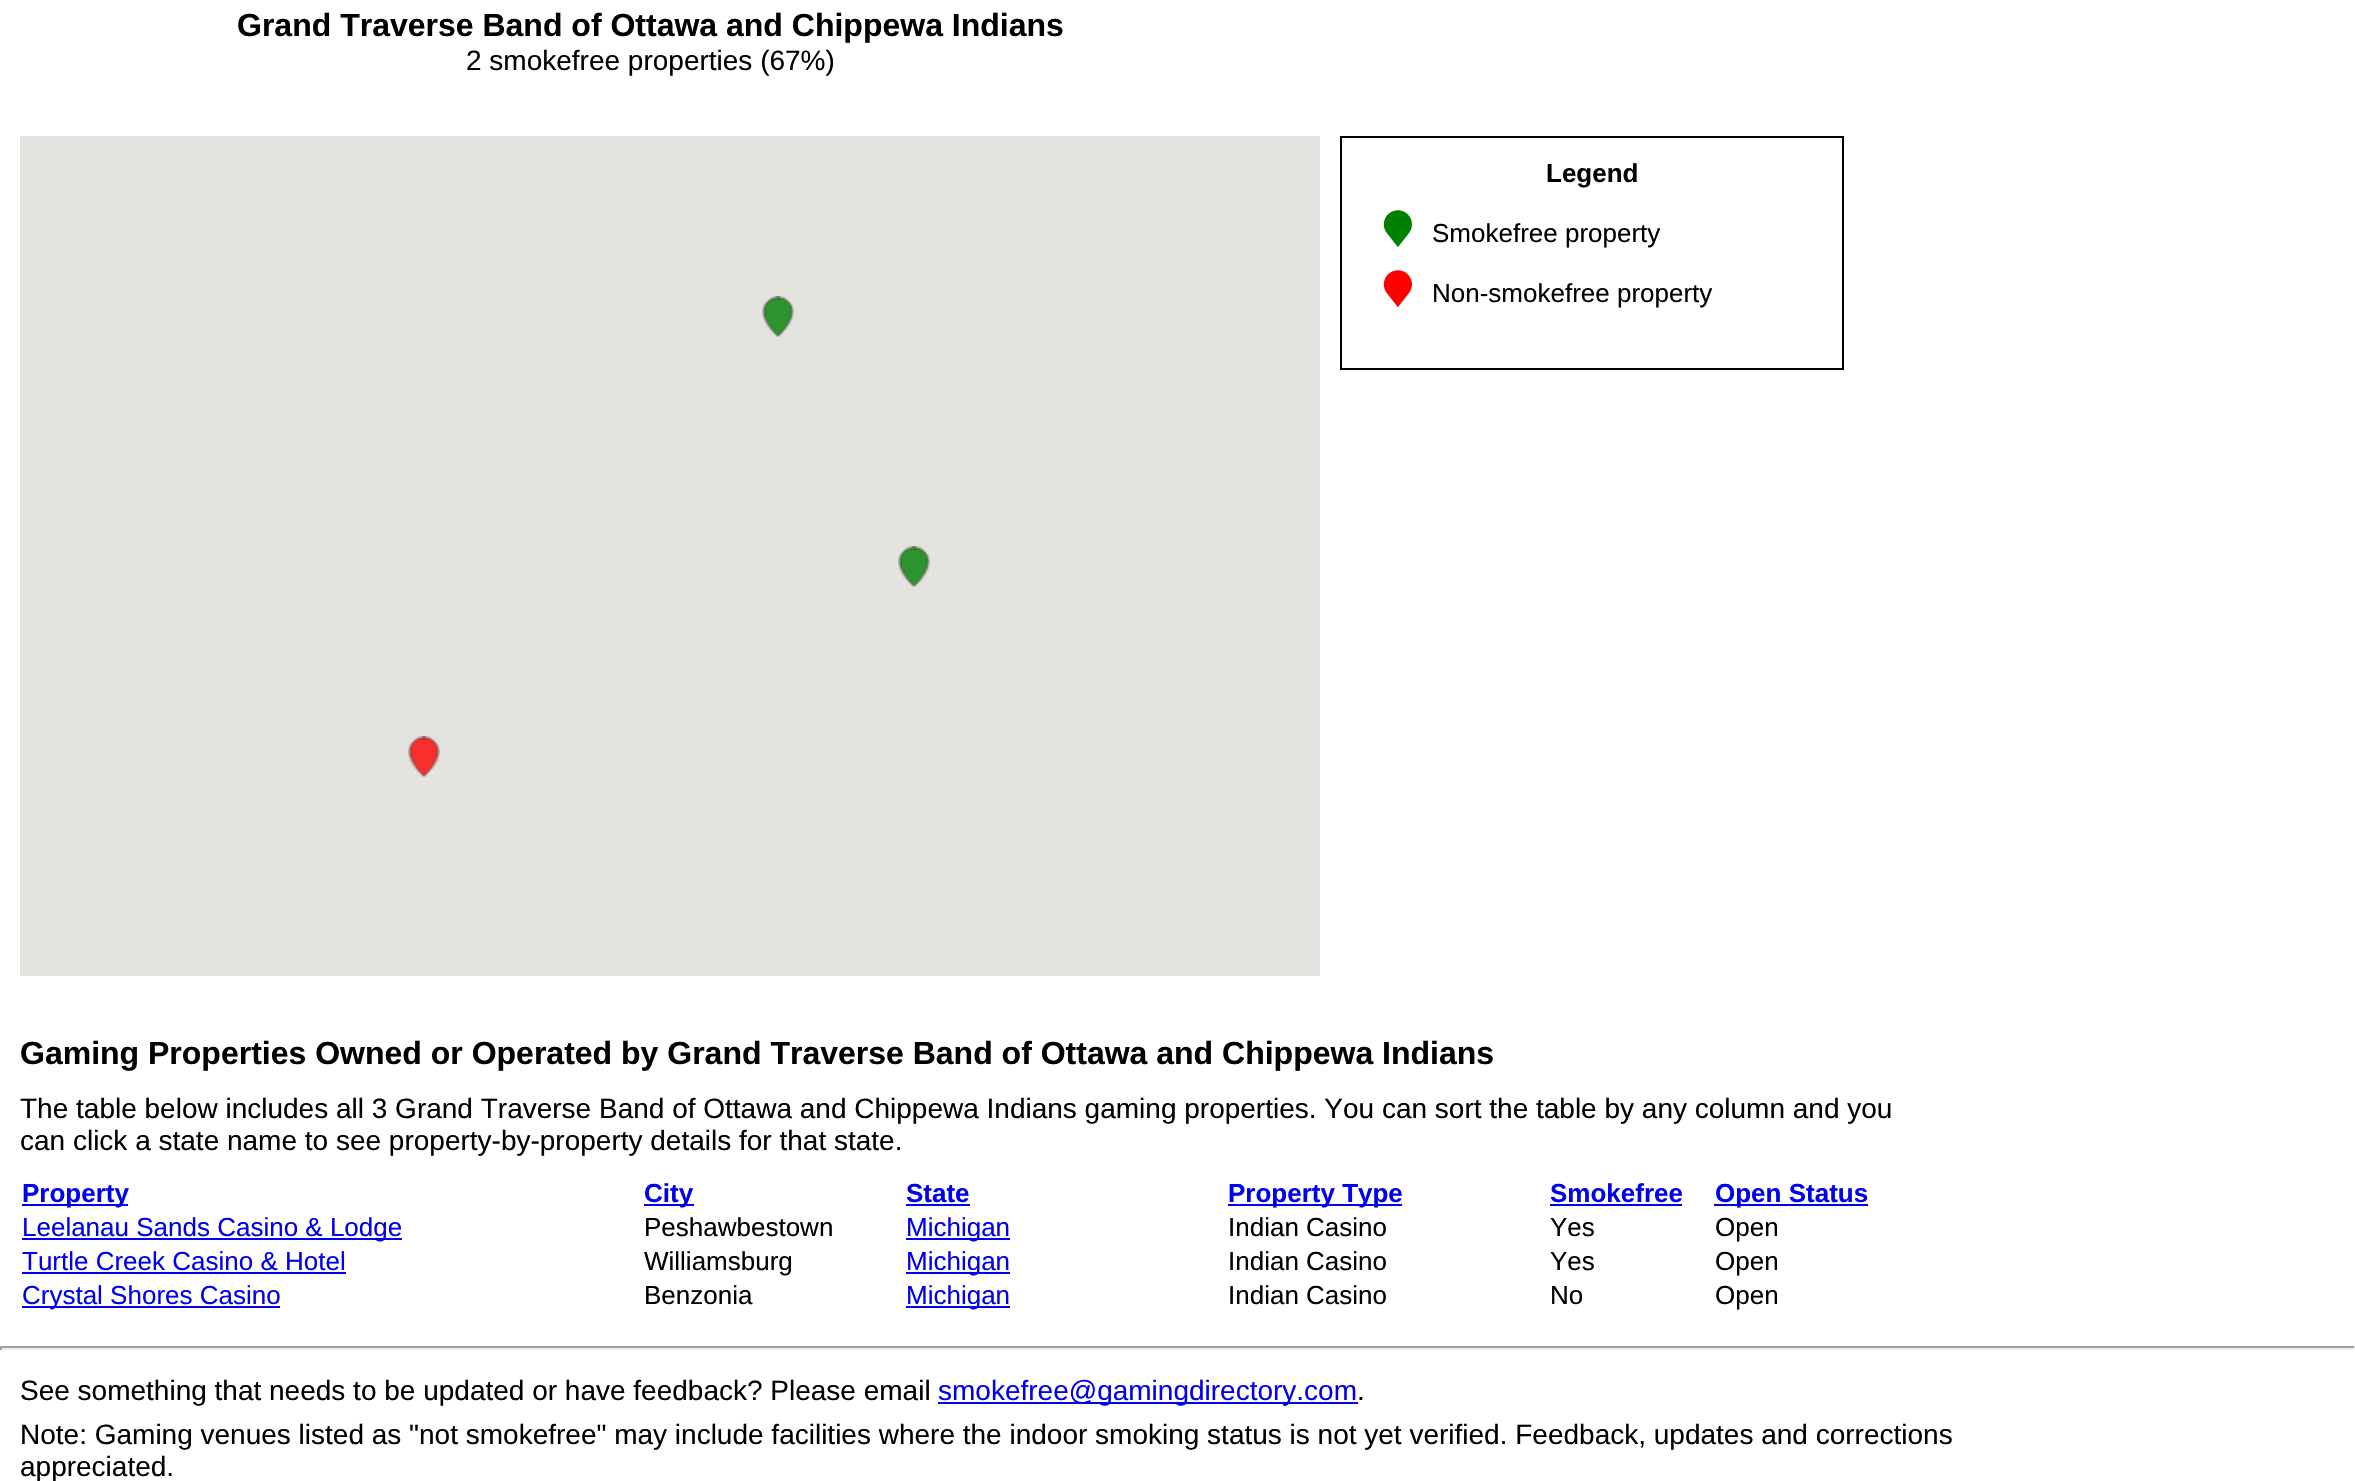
#include "include/core/SkBlurTypes.h"
#include "include/core/SkCanvas.h"
#include "include/core/SkData.h"
#include "include/core/SkFont.h"
#include "include/core/SkFontMgr.h"
#include "include/core/SkImage.h"
#include "include/core/SkMaskFilter.h"
#include "include/core/SkPaint.h"
#include "include/core/SkPathBuilder.h"
#include "include/core/SkTextBlob.h"
#include "include/effects/SkDashPathEffect.h"
#include "include/effects/SkGradientShader.h"
#include "include/utils/SkParsePath.h"

extern sk_sp<SkFontMgr> fontMgr;

static SkFont font(const char* family, int weight, float size, bool italic = false) {
    SkFontStyle style(weight, SkFontStyle::kNormal_Width,
        italic ? SkFontStyle::kItalic_Slant : SkFontStyle::kUpright_Slant);
    SkFont result(fontMgr->matchFamilyStyle(family, style), size);
    result.setSubpixel(true);
    return result;
}

static void drawLabel(SkCanvas* canvas, const char* s, float x, float y, const SkFont& font, SkColor color) {
    SkPaint ink(SkColor4f::FromColor(color));
    ink.setAntiAlias(true);
    canvas->drawString(s, x, y, font, ink);
}

static void fillRect(SkCanvas* canvas, float x, float y, float w, float h, SkColor color) {
    SkPaint ink(SkColor4f::FromColor(color));
    ink.setAntiAlias(true);
    canvas->drawRect(SkRect::MakeXYWH(x, y, w, h), ink);
}

static void drawPhoto(SkCanvas* canvas, const char* path, float x, float y, float w, float h) {
    auto image = SkImages::DeferredFromEncodedData(SkData::MakeFromFileName(path));
    canvas->drawImageRect(image, SkRect::MakeXYWH(x, y, w, h), SkSamplingOptions());
}

void draw(SkCanvas* canvas) {
    SkPaint paint;
    paint.setAntiAlias(true);
    canvas->clear(0xFFFFFFFF);
    SkFont font1 = font("Liberation Sans", 700, 32);
    drawLabel(canvas, "Grand Traverse Band of Ottawa and Chippewa Indians", 237, 36, font1, 0xFF000000);
    SkFont font2 = font("Liberation Sans", 400, 28);
    drawLabel(canvas, "2 smokefree properties (67%)", 466, 70, font2, 0xFF000000);
    fillRect(canvas, 20, 136, 1300, 840, 0xFFE5E3DF);
    drawPhoto(canvas, "assets/img1.png", 762, 296, 32, 41);
    drawPhoto(canvas, "assets/img1.png", 898, 546, 32, 41);
    drawPhoto(canvas, "assets/img2.png", 408, 736, 32, 41);
    paint.setStroke(true);
    paint.setStrokeWidth(2);
    paint.setColor(0xFF000000);
    canvas->drawRect(SkRect::MakeXYWH(1341, 137, 502, 232), paint);
    SkFont font3 = font("Liberation Sans", 700, 26);
    drawLabel(canvas, "Legend", 1546, 182, font3, 0xFF000000);
    SkFont font4 = font("Liberation Sans", 400, 26);
    drawLabel(canvas, "Smokefree property", 1432, 242, font4, 0xFF000000);
    drawPhoto(canvas, "assets/img3.png", 1383, 270, 29, 38);
    drawPhoto(canvas, "assets/img4.png", 1383, 210, 29, 38);
    drawLabel(canvas, "Non-smokefree property", 1432, 302, font4, 0xFF000000);
    drawLabel(canvas, "Gaming Properties Owned or Operated by Grand Traverse Band of Ottawa and Chippewa Indians", 20, 1064, font1, 0xFF000000);
    drawLabel(canvas, "The table below includes all 3 Grand Traverse Band of Ottawa and Chippewa Indians gaming properties. You can sort the table by any column and you", 20, 1118, font2, 0xFF000000);
    drawLabel(canvas, "can click a state name to see property-by-property details for that state.", 20, 1150, font2, 0xFF000000);
    fillRect(canvas, 22, 1204, 106, 2, 0xFF0000EE);
    drawLabel(canvas, "Property", 22, 1202, font3, 0xFF0000EE);
    fillRect(canvas, 644, 1204, 50, 2, 0xFF0000EE);
    drawLabel(canvas, "City", 644, 1202, font3, 0xFF0000EE);
    drawLabel(canvas, "State", 906, 1202, font3, 0xFF0000EE);
    fillRect(canvas, 906, 1204, 64, 2, 0xFF0000EE);
    fillRect(canvas, 1228, 1204, 174, 2, 0xFF0000EE);
    drawLabel(canvas, "Property Type", 1228, 1202, font3, 0xFF0000EE);
    drawLabel(canvas, "Smokefree", 1550, 1202, font3, 0xFF0000EE);
    fillRect(canvas, 1550, 1204, 132, 2, 0xFF0000EE);
    fillRect(canvas, 1714, 1204, 154, 2, 0xFF0000EE);
    drawLabel(canvas, "Open Status", 1715, 1202, font3, 0xFF0000EE);
    fillRect(canvas, 22, 1238, 380, 2, 0xFF0000EE);
    drawLabel(canvas, "Leelanau Sands Casino & Lodge", 22, 1236, font4, 0xFF0000EE);
    drawLabel(canvas, "Peshawbestown", 644, 1236, font4, 0xFF000000);
    fillRect(canvas, 906, 1238, 104, 2, 0xFF0000EE);
    drawLabel(canvas, "Michigan", 906, 1236, font4, 0xFF0000EE);
    drawLabel(canvas, "Indian Casino", 1228, 1236, font4, 0xFF000000);
    drawLabel(canvas, "Yes", 1550, 1236, font4, 0xFF000000);
    drawLabel(canvas, "Open", 1715, 1236, font4, 0xFF000000);
    drawLabel(canvas, "Turtle Creek Casino & Hotel", 22, 1270, font4, 0xFF0000EE);
    fillRect(canvas, 22, 1272, 324, 2, 0xFF0000EE);
    drawLabel(canvas, "Williamsburg", 644, 1270, font4, 0xFF000000);
    fillRect(canvas, 906, 1272, 104, 2, 0xFF0000EE);
    drawLabel(canvas, "Michigan", 906, 1270, font4, 0xFF0000EE);
    drawLabel(canvas, "Indian Casino", 1228, 1270, font4, 0xFF000000);
    drawLabel(canvas, "Yes", 1550, 1270, font4, 0xFF000000);
    drawLabel(canvas, "Open", 1715, 1270, font4, 0xFF000000);
    fillRect(canvas, 22, 1306, 258, 2, 0xFF0000EE);
    drawLabel(canvas, "Crystal Shores Casino", 22, 1304, font4, 0xFF0000EE);
    drawLabel(canvas, "Benzonia", 644, 1304, font4, 0xFF000000);
    fillRect(canvas, 906, 1306, 104, 2, 0xFF0000EE);
    drawLabel(canvas, "Michigan", 906, 1304, font4, 0xFF0000EE);
    drawLabel(canvas, "Indian Casino", 1228, 1304, font4, 0xFF000000);
    drawLabel(canvas, "No", 1550, 1304, font4, 0xFF000000);
    drawLabel(canvas, "Open", 1715, 1304, font4, 0xFF000000);
    fillRect(canvas, 0, 1346, 2355, 2, 0xFF9F9F9F);
    fillRect(canvas, 2354, 1346, 1, 4, 0xFFEEEEEE);
    fillRect(canvas, 0, 1348, 2355, 2, 0xFFEEEEEE);
    fillRect(canvas, 0, 1346, 2, 4, 0xFF9F9F9F);
    drawLabel(canvas, "See something that needs to be updated or have feedback? Please email", 20, 1400, font2, 0xFF000000);
    fillRect(canvas, 938, 1402, 420, 2, 0xFF0000EE);
    drawLabel(canvas, "smokefree@gamingdirectory.com", 938, 1400, font2, 0xFF0000EE);
    drawLabel(canvas, ".", 1357, 1400, font2, 0xFF000000);
    drawLabel(canvas, "Note: Gaming venues listed as \"not smokefree\" may include facilities where the indoor smoking status is not yet verified. Feedback, updates and corrections", 20, 1444, font2, 0xFF000000);
    drawLabel(canvas, "appreciated.", 20, 1476, font2, 0xFF000000);
}
